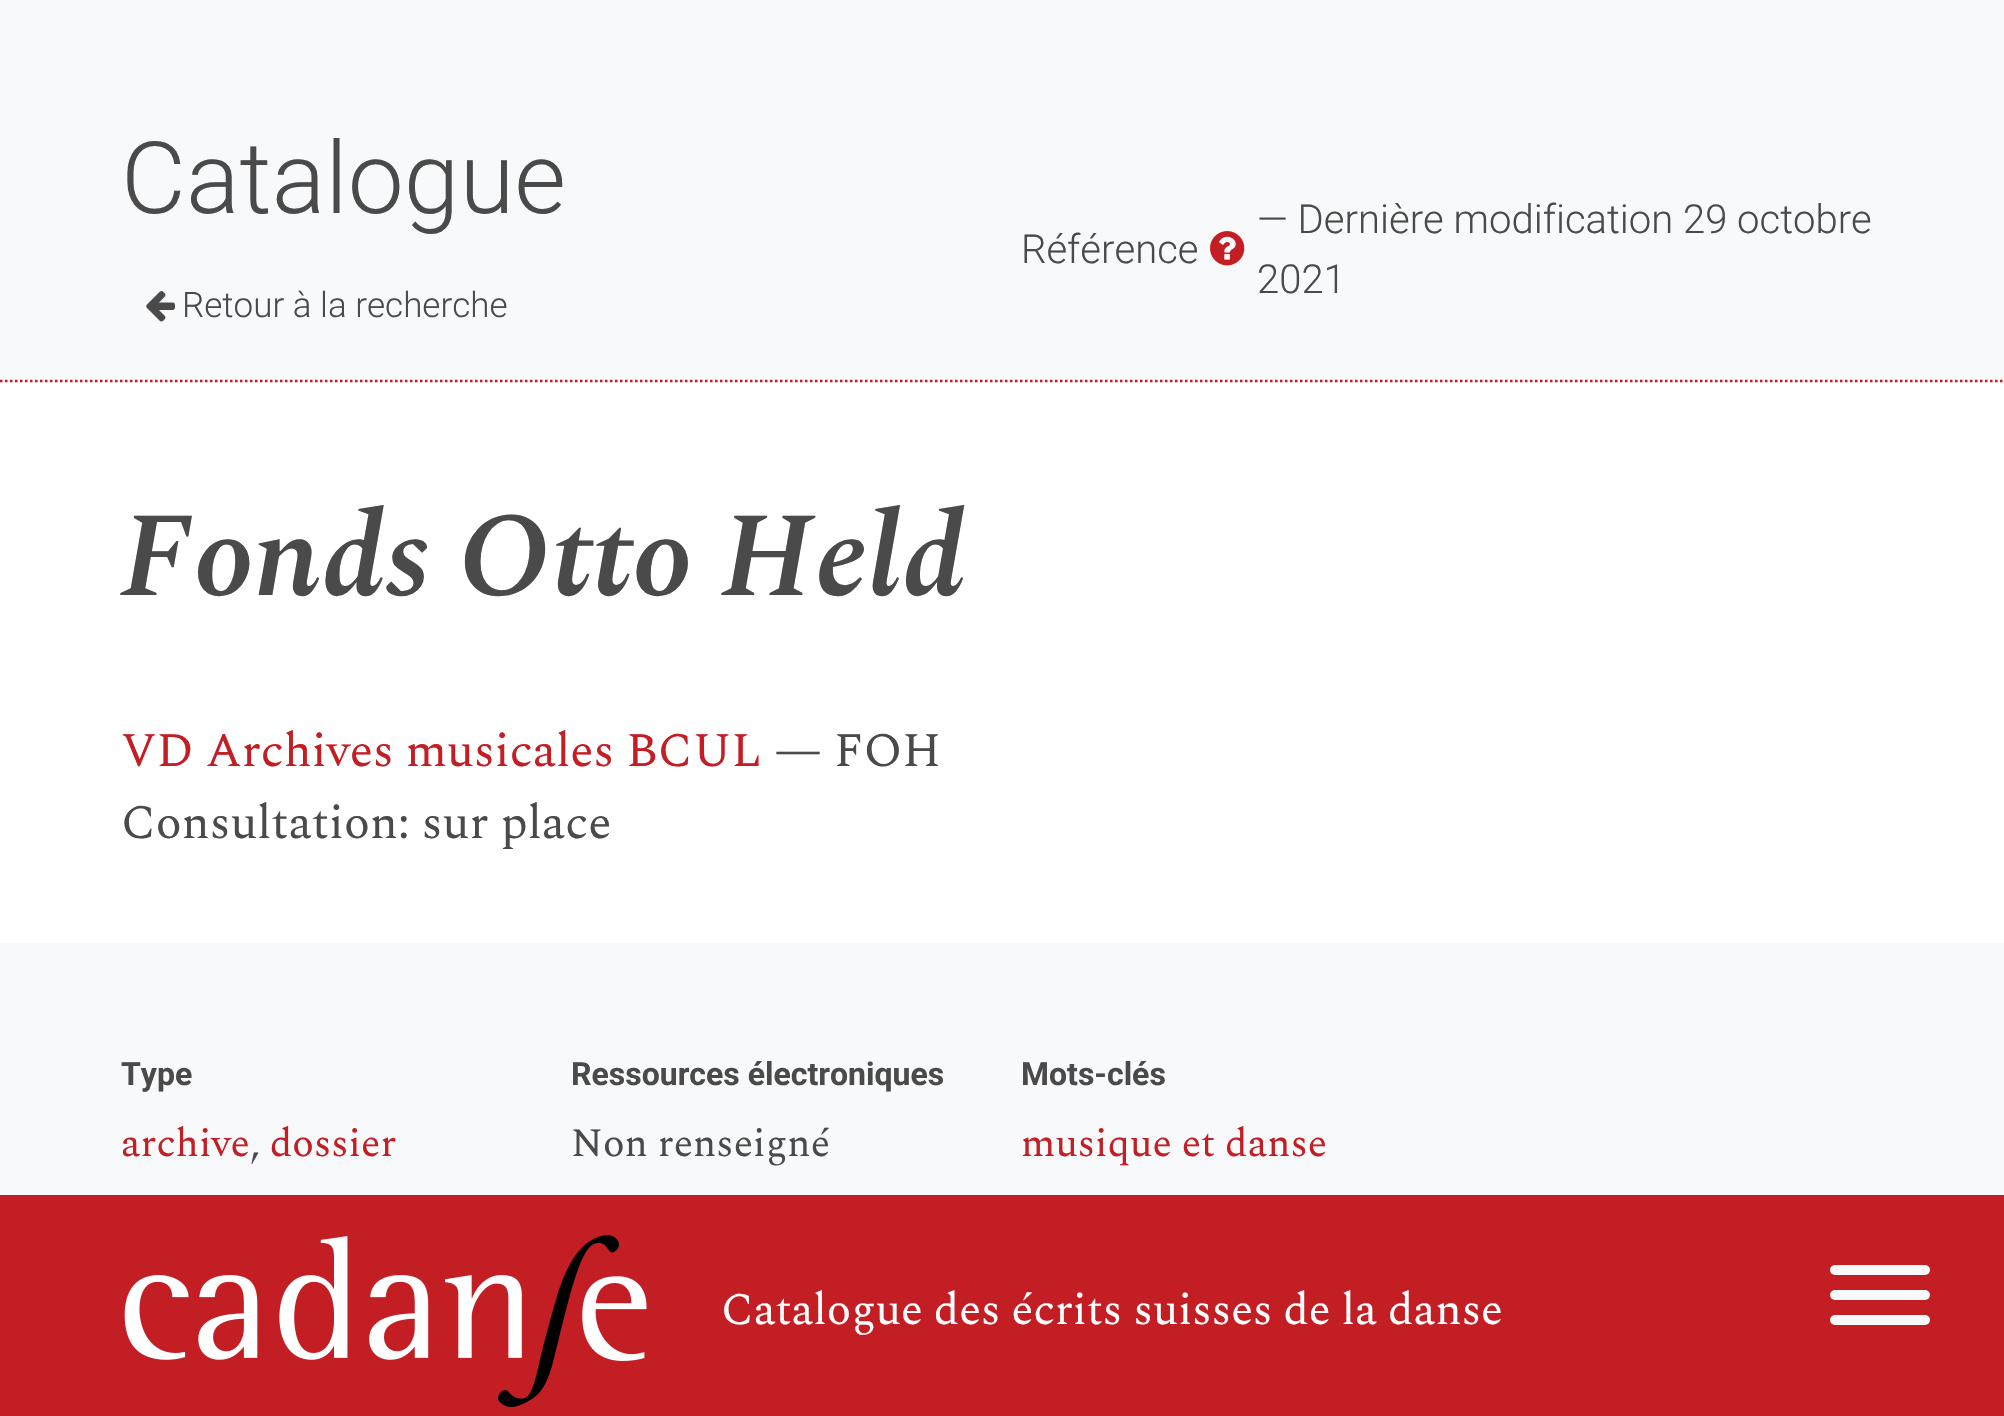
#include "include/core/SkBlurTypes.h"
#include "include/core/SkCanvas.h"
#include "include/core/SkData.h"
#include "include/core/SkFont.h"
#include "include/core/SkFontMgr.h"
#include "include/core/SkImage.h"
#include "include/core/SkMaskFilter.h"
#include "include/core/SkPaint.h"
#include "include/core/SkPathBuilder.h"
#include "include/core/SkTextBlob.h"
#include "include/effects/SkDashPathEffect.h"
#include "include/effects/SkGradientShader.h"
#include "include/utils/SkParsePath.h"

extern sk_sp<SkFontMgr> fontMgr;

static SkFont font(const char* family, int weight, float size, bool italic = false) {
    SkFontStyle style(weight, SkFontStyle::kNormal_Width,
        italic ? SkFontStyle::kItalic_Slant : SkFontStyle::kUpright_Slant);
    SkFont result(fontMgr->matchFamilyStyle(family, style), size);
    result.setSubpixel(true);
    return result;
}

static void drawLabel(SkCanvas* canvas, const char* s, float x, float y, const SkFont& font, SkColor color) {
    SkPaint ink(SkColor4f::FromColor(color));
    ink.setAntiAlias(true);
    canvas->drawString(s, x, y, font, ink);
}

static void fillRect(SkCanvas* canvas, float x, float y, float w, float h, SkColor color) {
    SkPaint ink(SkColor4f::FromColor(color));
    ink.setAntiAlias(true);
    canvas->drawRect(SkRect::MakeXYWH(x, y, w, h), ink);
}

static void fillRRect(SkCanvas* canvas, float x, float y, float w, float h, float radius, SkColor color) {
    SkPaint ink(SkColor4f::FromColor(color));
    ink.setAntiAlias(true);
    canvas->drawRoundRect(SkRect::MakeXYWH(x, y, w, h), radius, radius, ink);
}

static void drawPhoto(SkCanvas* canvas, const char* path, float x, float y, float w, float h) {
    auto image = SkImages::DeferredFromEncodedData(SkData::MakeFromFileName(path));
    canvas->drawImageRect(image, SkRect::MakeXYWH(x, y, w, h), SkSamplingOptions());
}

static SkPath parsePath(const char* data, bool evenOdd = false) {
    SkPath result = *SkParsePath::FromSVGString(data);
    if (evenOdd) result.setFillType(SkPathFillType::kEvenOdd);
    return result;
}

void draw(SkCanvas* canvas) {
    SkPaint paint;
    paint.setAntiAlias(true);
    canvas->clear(0xFFF8F9FA);
    paint.setStroke(true);
    paint.setStrokeWidth(2.5f);
    paint.setColor(0xFFC41E25);
    paint.setPathEffect(SkDashPathEffect::Make({{2.5f, 2.5f}}, 0));
    canvas->drawPath(parsePath("M0 381H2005"), paint);
    paint.setPathEffect(nullptr);
    SkFont font1 = font("Roboto", 300, 100);
    drawLabel(canvas, "Catalogue", 121, 213, font1, 0xFF4A4A4A);
    drawPhoto(canvas, "assets/img1.png", 146, 291, 29, 31);
    SkFont font2 = font("Roboto", 300, 35);
    drawLabel(canvas, "Retour à la recherche", 182, 317, font2, 0xFF4A4A4A);
    SkFont font3 = font("Roboto", 300, 40);
    drawLabel(canvas, "— Dernière modification 29 octobre", 1257, 233, font3, 0xFF4A4A4A);
    drawLabel(canvas, "Référence", 1021, 263, font3, 0xFF4A4A4A);
    drawPhoto(canvas, "assets/img2.png", 1210, 231, 35, 35);
    drawLabel(canvas, "2021", 1257, 293, font3, 0xFF4A4A4A);
    fillRect(canvas, 0, 383, 2004, 560, 0xFFFFFFFF);
    SkFont font4 = font("Spectral", 600, 120, true);
    drawLabel(canvas, "Fonds Otto Held", 121, 595, font4, 0xFF4A4A4A);
    SkFont font5 = font("Spectral", 400, 48);
    drawLabel(canvas, "VD Archives musicales BCUL", 121, 766, font5, 0xFFC41E25);
    drawLabel(canvas, "— FOH", 774, 766, font5, 0xFF4A4A4A);
    drawLabel(canvas, "Consultation: sur place", 121, 838, font5, 0xFF4A4A4A);
    SkFont font6 = font("Roboto", 700, 32);
    drawLabel(canvas, "Type", 121, 1085, font6, 0xFF4A4A4A);
    SkFont font7 = font("Spectral", 400, 40);
    drawLabel(canvas, "archive", 121, 1156, font7, 0xFFC41E25);
    drawLabel(canvas, ",", 250, 1156, font7, 0xFF4A4A4A);
    drawLabel(canvas, "dossier", 270, 1156, font7, 0xFFC41E25);
    drawLabel(canvas, "Ressources électroniques", 571, 1085, font6, 0xFF4A4A4A);
    drawLabel(canvas, "Non renseigné", 571, 1156, font7, 0xFF4A4A4A);
    drawLabel(canvas, "Mots-clés", 1021, 1085, font6, 0xFF4A4A4A);
    drawLabel(canvas, "musique et danse", 1021, 1156, font7, 0xFFC41E25);
    fillRect(canvas, 0, 1195, 2004, 221, 0xFFC41E25);
    drawPhoto(canvas, "assets/img3.png", 124, 1235, 523, 173);
    SkFont font8 = font("Spectral", 400, 45);
    drawLabel(canvas, "Catalogue des écrits suisses de la danse", 721, 1324, font8, 0xFFFFFFFF);
    fillRRect(canvas, 1830, 1290, 100, 10, 5, 0xFFF8F9FA);
    fillRRect(canvas, 1830, 1265, 100, 10, 5, 0xFFF8F9FA);
    fillRRect(canvas, 1830, 1315, 100, 10, 5, 0xFFF8F9FA);
}
